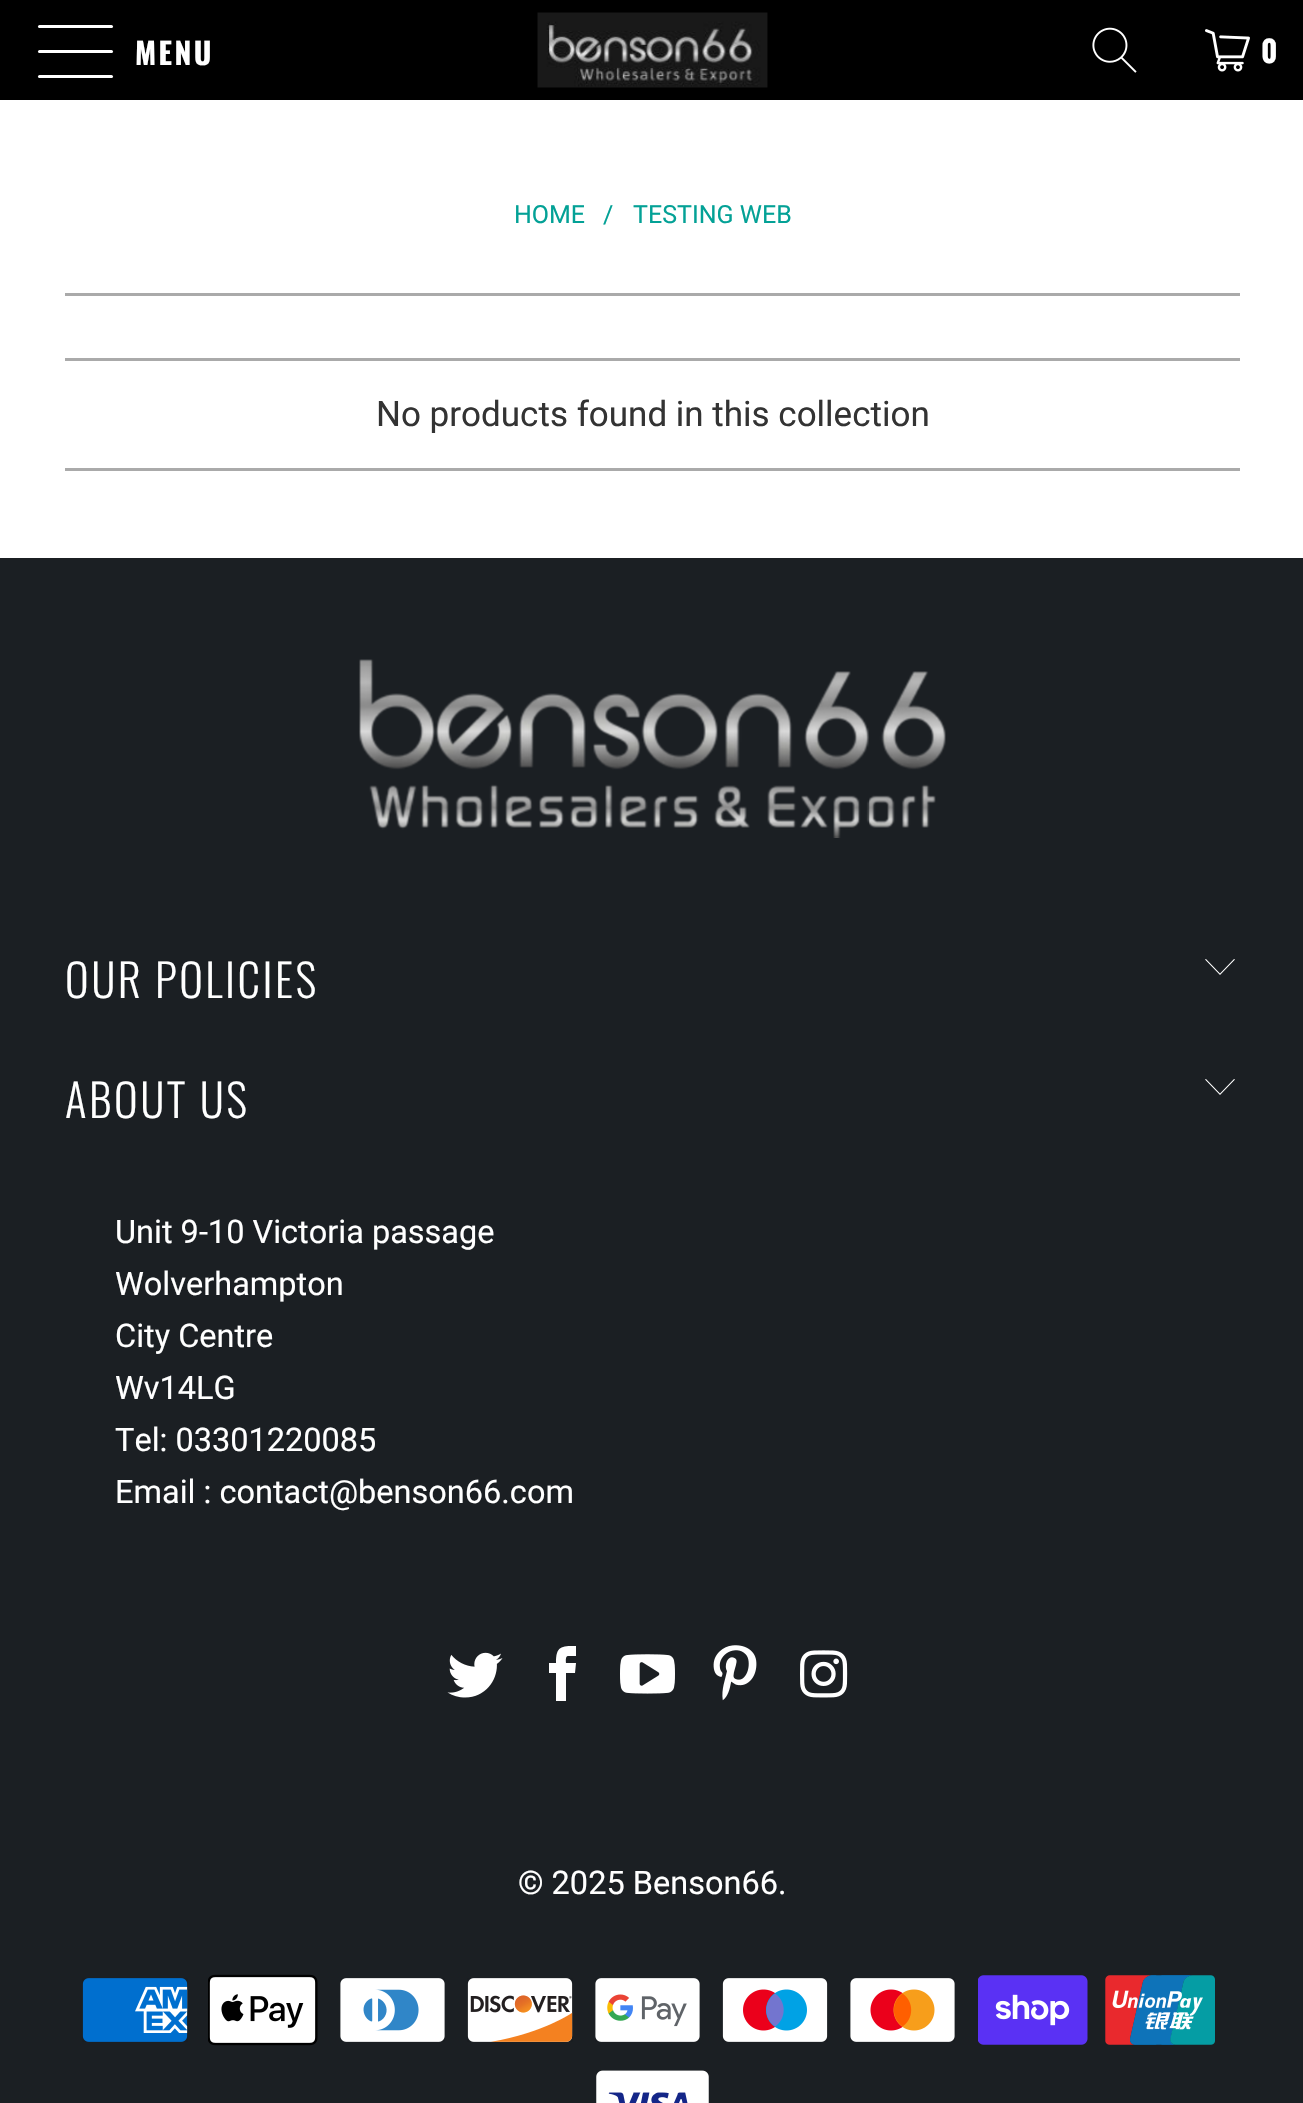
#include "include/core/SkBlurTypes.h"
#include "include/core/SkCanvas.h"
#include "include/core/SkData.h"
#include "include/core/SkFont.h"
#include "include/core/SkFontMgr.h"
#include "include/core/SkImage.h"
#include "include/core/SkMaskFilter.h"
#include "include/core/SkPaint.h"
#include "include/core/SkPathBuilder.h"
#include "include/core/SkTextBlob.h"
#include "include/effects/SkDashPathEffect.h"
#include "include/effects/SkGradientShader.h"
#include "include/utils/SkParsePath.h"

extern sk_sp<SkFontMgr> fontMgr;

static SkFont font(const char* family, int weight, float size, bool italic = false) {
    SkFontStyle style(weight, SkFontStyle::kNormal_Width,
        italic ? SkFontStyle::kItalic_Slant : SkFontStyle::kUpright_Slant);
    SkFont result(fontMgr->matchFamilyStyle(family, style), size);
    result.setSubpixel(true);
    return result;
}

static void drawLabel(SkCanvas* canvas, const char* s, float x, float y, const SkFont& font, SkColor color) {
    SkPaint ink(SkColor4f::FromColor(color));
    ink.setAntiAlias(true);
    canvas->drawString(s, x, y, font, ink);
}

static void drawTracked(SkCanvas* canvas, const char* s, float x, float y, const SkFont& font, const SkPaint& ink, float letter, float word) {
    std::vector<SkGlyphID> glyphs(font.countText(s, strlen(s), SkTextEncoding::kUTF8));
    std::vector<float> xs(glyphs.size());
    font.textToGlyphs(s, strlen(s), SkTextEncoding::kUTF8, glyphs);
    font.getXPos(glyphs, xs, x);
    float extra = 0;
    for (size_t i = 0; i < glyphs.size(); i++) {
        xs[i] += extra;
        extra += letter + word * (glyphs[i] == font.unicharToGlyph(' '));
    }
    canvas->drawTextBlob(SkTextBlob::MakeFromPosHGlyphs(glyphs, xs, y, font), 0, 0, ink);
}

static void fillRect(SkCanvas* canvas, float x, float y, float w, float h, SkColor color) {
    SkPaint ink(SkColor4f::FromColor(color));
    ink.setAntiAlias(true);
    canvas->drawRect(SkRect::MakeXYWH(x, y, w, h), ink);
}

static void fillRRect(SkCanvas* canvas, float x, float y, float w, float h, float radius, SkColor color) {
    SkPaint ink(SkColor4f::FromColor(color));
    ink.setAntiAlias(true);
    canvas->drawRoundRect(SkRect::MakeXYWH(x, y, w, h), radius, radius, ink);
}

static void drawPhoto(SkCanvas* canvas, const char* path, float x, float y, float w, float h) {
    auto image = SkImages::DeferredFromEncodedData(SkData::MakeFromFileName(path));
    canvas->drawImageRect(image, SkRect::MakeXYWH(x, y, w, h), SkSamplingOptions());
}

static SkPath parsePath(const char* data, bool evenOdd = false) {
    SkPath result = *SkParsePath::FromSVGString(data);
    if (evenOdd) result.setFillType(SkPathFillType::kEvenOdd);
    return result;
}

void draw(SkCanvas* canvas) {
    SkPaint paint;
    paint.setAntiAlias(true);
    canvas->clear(0xFFFFFFFF);
    fillRect(canvas, 0, 0, 1303, 100, 0xFF000000);
    fillRRect(canvas, 38, 25, 75, 3, 1.5f, 0xFFFFFFFF);
    fillRRect(canvas, 38, 50, 75, 3, 1.5f, 0xFFFFFFFF);
    fillRRect(canvas, 38, 75, 75, 3, 1.5f, 0xFFFFFFFF);
    SkFont font1 = font("Oswald", 700, 30);
    paint.setColor(0xFFFFFFFF);
    drawTracked(canvas, "MENU", 135, 65, font1, paint, 2.5f, 0);
    drawPhoto(canvas, "assets/img1.png", 537, 12, 231, 76);
    drawPhoto(canvas, "assets/img2.png", 1092, 27, 45, 46);
    drawPhoto(canvas, "assets/img3.png", 1205, 29, 45, 43);
    drawTracked(canvas, "0", 1261, 63, font1, paint, 2.5f, 0);
    SkFont font2 = font("Roboto", 400, 25);
    drawLabel(canvas, "HOME", 514, 223, font2, 0xFF03A196);
    drawLabel(canvas, "/", 603, 223, font2, 0xFF03A196);
    drawLabel(canvas, "TESTING WEB", 633, 223, font2, 0xFF03A196);
    fillRect(canvas, 65, 293, 1175, 3, 0xFFAAAAAA);
    fillRect(canvas, 65, 358, 1175, 3, 0xFFAAAAAA);
    fillRect(canvas, 65, 468, 1175, 3, 0xFFAAAAAA);
    SkFont font3 = font("Roboto", 400, 35);
    drawLabel(canvas, "No products found in this collection", 376, 426, font3, 0xFF333333);
    fillRect(canvas, 0, 558, 1303, 1545, 0xFF1B1F23);
    drawPhoto(canvas, "assets/img4.png", 359, 659, 587, 179);
    SkFont font4 = font("Oswald", 300, 45);
    drawTracked(canvas, "OUR POLICIES", 65, 998, font4, paint, 2.5f, 0);
    canvas->drawPath(parsePath("M1220 975L1205 959.5L1206 959L1220 973.5L1234 959L1235 959.5Z"), paint);
    drawTracked(canvas, "ABOUT US", 65, 1118, font4, paint, 2.5f, 0);
    canvas->drawPath(parsePath("M1220 1095L1205 1079.5L1206 1079L1220 1093.5L1234 1079L1235 1079.5Z"), paint);
    SkFont font5 = font("Roboto", 400, 32.5f);
    drawLabel(canvas, "Unit 9-10 Victoria passage", 115, 1243, font5, 0xFFFFFFFF);
    drawLabel(canvas, "Wolverhampton", 115, 1295, font5, 0xFFFFFFFF);
    drawLabel(canvas, "City Centre", 115, 1347, font5, 0xFFFFFFFF);
    drawLabel(canvas, "Wv14LG", 115, 1399, font5, 0xFFFFFFFF);
    drawLabel(canvas, "Tel: 03301220085", 115, 1451, font5, 0xFFFFFFFF);
    drawLabel(canvas, "Email : contact@benson66.com", 115, 1503, font5, 0xFFFFFFFF);
    drawPhoto(canvas, "assets/img5.png", 447, 1652, 56, 46);
    canvas->drawPath(parsePath("M568 1656H576V1646C561 1646 556 1646 556 1663H549V1673H556V1701H566V1673H575L576 1663H566C566 1662 565 1656 568 1656Z"), paint);
    drawPhoto(canvas, "assets/img6.png", 620, 1654, 55, 40);
    drawPhoto(canvas, "assets/img7.png", 713, 1645, 44, 56);
    drawPhoto(canvas, "assets/img8.png", 800, 1650, 48, 48);
    drawLabel(canvas, "© 2025 Benson66", 518, 1894, font5, 0xFFFFFFFF);
    drawLabel(canvas, ".", 778, 1894, font5, 0xFFFFFFFF);
    drawPhoto(canvas, "assets/img9.png", 82, 1978, 106, 64);
    drawPhoto(canvas, "assets/img10.png", 208, 1974, 110, 72);
    drawPhoto(canvas, "assets/img11.png", 340, 1978, 105, 64);
    drawPhoto(canvas, "assets/img12.png", 467, 1978, 106, 64);
    drawPhoto(canvas, "assets/img13.png", 595, 1978, 105, 64);
    drawPhoto(canvas, "assets/img14.png", 722, 1978, 106, 64);
    drawPhoto(canvas, "assets/img15.png", 850, 1978, 105, 64);
    drawPhoto(canvas, "assets/img16.png", 978, 1975, 110, 70);
    drawPhoto(canvas, "assets/img17.png", 1105, 1975, 110, 70);
    drawPhoto(canvas, "assets/img18.png", 596, 2070, 113, 33);
}
